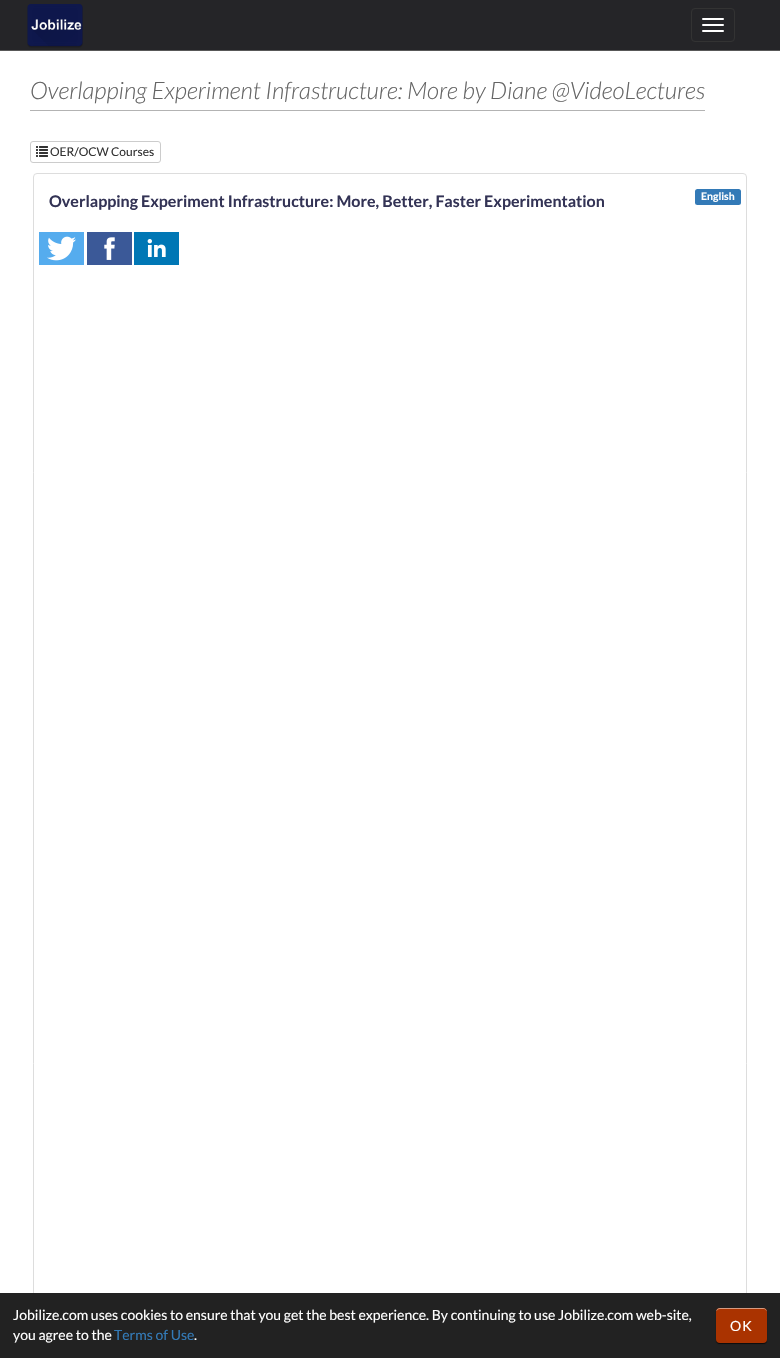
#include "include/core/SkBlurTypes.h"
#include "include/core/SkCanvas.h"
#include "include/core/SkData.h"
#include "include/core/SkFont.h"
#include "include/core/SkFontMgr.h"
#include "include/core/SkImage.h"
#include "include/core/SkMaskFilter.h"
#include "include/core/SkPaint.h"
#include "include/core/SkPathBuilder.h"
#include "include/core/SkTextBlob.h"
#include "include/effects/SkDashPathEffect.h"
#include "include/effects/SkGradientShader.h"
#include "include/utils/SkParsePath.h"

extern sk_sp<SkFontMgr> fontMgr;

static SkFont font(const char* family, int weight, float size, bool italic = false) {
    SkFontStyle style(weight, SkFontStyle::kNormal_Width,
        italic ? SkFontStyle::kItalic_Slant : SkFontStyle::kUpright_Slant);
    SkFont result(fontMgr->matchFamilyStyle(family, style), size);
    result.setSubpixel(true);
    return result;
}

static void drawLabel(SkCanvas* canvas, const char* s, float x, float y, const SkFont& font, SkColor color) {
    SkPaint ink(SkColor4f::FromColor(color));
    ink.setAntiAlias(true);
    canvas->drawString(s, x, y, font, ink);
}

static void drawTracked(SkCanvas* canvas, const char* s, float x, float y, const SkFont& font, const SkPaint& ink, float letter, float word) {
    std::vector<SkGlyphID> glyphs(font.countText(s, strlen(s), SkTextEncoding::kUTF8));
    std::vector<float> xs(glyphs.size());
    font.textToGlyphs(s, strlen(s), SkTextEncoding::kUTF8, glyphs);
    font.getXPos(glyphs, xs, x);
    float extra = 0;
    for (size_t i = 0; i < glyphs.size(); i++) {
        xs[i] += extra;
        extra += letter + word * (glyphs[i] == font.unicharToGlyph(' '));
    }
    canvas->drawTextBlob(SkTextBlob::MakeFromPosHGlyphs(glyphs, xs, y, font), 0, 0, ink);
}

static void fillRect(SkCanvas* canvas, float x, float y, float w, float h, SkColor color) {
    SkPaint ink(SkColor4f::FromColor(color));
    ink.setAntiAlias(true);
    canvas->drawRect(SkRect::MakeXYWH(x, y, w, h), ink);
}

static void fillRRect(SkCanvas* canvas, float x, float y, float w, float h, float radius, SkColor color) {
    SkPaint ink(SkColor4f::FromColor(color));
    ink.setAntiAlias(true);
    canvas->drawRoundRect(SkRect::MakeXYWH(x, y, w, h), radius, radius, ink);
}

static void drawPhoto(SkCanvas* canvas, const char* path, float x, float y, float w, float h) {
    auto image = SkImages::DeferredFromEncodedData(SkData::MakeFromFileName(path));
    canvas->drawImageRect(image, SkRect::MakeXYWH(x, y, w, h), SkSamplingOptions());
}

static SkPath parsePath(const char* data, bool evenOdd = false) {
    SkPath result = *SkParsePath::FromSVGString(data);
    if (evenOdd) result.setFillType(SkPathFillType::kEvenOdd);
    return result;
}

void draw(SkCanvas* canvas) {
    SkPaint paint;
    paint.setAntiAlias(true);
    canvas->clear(0xFFFFFFFF);
    fillRect(canvas, 0, 0, 780, 50, 0xFF252528);
    fillRect(canvas, 0, 50, 780, 1, 0xFF585858);
    drawPhoto(canvas, "assets/img1.png", 27, 4, 56, 44);
    paint.setStroke(true);
    paint.setStrokeWidth(1);
    paint.setColor(0xFF333333);
    canvas->drawRoundRect(SkRect::MakeXYWH(691.5f, 8.5f, 43, 33), 3.5f, 3.5f, paint);
    fillRRect(canvas, 702, 18, 22, 2, 1, 0xFFFFFFFF);
    fillRRect(canvas, 702, 24, 22, 2, 1, 0xFFFFFFFF);
    fillRRect(canvas, 702, 30, 22, 2, 1, 0xFFFFFFFF);
    fillRect(canvas, 30, 110, 675, 1, 0xFFB3B3B3);
    SkFont font1 = font("Lato", 300, 24, true);
    drawLabel(canvas, "Overlapping Experiment Infrastructure: More by Diane @VideoLectures", 30, 99, font1, 0xFF646464);
    paint.setColor(0xFFCCCCCC);
    canvas->drawRoundRect(SkRect::MakeXYWH(30.5f, 141.5f, 130, 21), 2.5f, 2.5f, paint);
    drawPhoto(canvas, "assets/img2.png", 36, 146, 12, 11);
    SkFont font2 = font("Lato", 400, 12);
    drawLabel(canvas, "OER/OCW Courses", 50, 156, font2, 0xFF333333);
    paint.setColor(0xFFDDDDDD);
    canvas->drawRoundRect(SkRect::MakeXYWH(33.5f, 173.5f, 713, 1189), 3.5f, 3.5f, paint);
    SkFont font3 = font("Lato", 700, 16);
    drawLabel(canvas, "Overlapping Experiment Infrastructure: More, Better, Faster Experimentation", 49, 207, font3, 0xFF333355);
    fillRRect(canvas, 695, 189, 46, 16, 2.5f, 0xFF337AB7);
    SkFont font4 = font("Lato", 700, 10.5f);
    drawLabel(canvas, "English", 701, 200, font4, 0xFFFFFFFF);
    fillRect(canvas, 39, 232, 45, 33, 0xFF55ACEE);
    drawPhoto(canvas, "assets/img3.png", 47, 236, 29, 25);
    fillRect(canvas, 87, 232, 45, 33, 0xFF3B5998);
    drawPhoto(canvas, "assets/img4.png", 104, 237, 11, 23);
    fillRect(canvas, 134, 232, 45, 33, 0xFF0077B5);
    drawPhoto(canvas, "assets/img5.png", 147, 239, 19, 18);
    fillRect(canvas, 0, 1293, 780, 65, 0xFF222222);
    SkFont font5 = font("Lato", 400, 14);
    drawLabel(canvas, "Jobilize.com uses cookies to ensure that you get the best experience. By continuing to use Jobilize.com web-site,", 13, 1320, font5, 0xFFFFFFFF);
    drawLabel(canvas, "you agree to the", 13, 1340, font5, 0xFFFFFFFF);
    drawLabel(canvas, "Terms of Use", 114, 1340, font5, 0xFF337AB7);
    drawLabel(canvas, ".", 194, 1340, font5, 0xFFFFFFFF);
    paint.setStroke(false);
    paint.setColor(0xB3000000);
    paint.setMaskFilter(SkMaskFilter::MakeBlur(kNormal_SkBlurStyle, 0.5f));
    canvas->drawRoundRect(SkRect::MakeXYWH(716, 1309, 51, 35), 4, 4, paint);
    paint.setMaskFilter(nullptr);
    fillRRect(canvas, 716, 1308, 51, 35, 4, 0xFFAA3300);
    paint.setColor(0x80FFFFFF);
    canvas->drawPath(parsePath("M720 1309H764C765 1309 767 1311 767 1312C767 1310 765 1308 763 1308H720C718 1308 716 1310 716 1312C716 1311 718 1309 720 1309Z"), paint);
    paint.setColor(0xFFFFFFFF);
    drawTracked(canvas, "OK", 730, 1331, font5, paint, 1, 0);
}
